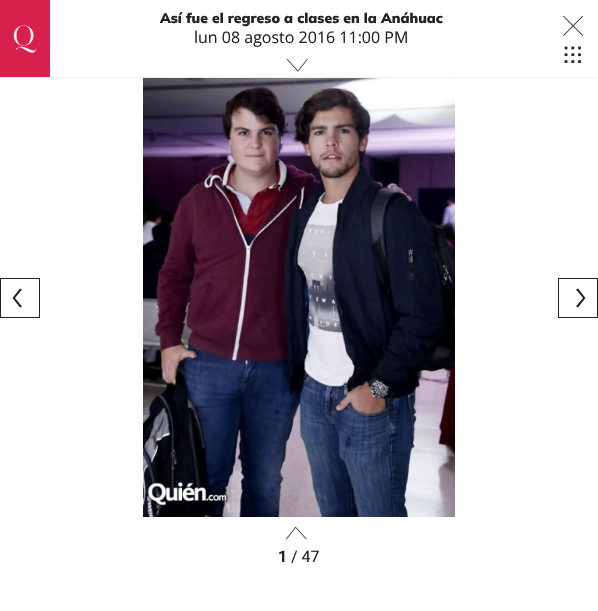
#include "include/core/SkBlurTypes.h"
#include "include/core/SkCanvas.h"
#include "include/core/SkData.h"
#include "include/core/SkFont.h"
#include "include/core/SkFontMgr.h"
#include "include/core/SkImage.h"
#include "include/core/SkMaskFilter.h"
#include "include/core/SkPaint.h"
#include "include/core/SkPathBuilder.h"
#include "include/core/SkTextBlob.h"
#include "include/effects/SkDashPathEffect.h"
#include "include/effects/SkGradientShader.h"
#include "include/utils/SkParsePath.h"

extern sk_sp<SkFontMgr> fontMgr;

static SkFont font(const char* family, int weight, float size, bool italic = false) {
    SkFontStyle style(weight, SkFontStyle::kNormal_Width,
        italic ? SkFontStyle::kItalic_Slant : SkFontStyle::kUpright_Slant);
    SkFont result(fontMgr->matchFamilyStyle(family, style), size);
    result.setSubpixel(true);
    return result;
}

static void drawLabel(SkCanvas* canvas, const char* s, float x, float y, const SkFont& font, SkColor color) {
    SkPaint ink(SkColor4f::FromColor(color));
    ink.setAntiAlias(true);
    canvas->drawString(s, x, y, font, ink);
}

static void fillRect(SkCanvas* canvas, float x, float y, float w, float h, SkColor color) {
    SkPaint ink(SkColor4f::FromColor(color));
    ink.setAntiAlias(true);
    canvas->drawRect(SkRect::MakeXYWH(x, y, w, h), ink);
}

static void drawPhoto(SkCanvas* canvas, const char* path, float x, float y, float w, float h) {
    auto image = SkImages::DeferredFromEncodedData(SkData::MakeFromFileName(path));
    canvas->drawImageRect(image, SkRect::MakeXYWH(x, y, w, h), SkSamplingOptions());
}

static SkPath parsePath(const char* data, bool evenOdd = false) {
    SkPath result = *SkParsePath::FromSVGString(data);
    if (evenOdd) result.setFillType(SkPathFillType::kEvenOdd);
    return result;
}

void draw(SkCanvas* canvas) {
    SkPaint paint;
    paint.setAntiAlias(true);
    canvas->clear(0xFFFFFFFF);
    fillRect(canvas, 0, 77, 598, 1, 0xFFEFEFEF);
    fillRect(canvas, 0, 0, 50, 77, 0xFFD7204C);
    drawPhoto(canvas, "assets/img1.png", 13, 25, 24, 28);
    SkFont font1 = font("Mulish", 900, 14);
    drawLabel(canvas, "Así fue el regreso a clases en la Anáhuac", 160, 23, font1, 0xFF242424);
    SkFont font2 = font("Open Sans", 400, 16);
    drawLabel(canvas, "lun 08 agosto 2016 11:00 PM", 194, 43, font2, 0xFF242424);
    drawPhoto(canvas, "assets/img2.png", 286, 59, 22, 13);
    drawPhoto(canvas, "assets/img3.png", 563, 15, 20, 21);
    drawPhoto(canvas, "assets/img4.png", 564, 46, 17, 17);
    paint.setStroke(true);
    paint.setStrokeWidth(1);
    paint.setColor(0xFF242424);
    canvas->drawRect(SkRect::MakeXYWH(0.5f, 278.5f, 39, 39), paint);
    paint.setStroke(false);
    canvas->drawPath(parsePath("M12.5 298L20 307.5L22 306.5L15 298L22 289.5L20 288.5Z"), paint);
    drawPhoto(canvas, "assets/img5.png", 143, 78, 312, 439);
    paint.setStroke(true);
    canvas->drawRect(SkRect::MakeXYWH(558.5f, 278.5f, 39, 39), paint);
    paint.setStroke(false);
    canvas->drawPath(parsePath("M585.5 298L578 288.5L576 289.5L583 298L576 306.5L578 307.5Z"), paint);
    drawPhoto(canvas, "assets/img6.png", 286, 527, 21, 13);
    SkFont font3 = font("Roboto", 700, 16);
    drawLabel(canvas, "1", 278, 562, font3, 0xFF242424);
    SkFont font4 = font("Roboto", 400, 16);
    drawLabel(canvas, "/ 47", 291, 562, font4, 0xFF242424);
}
